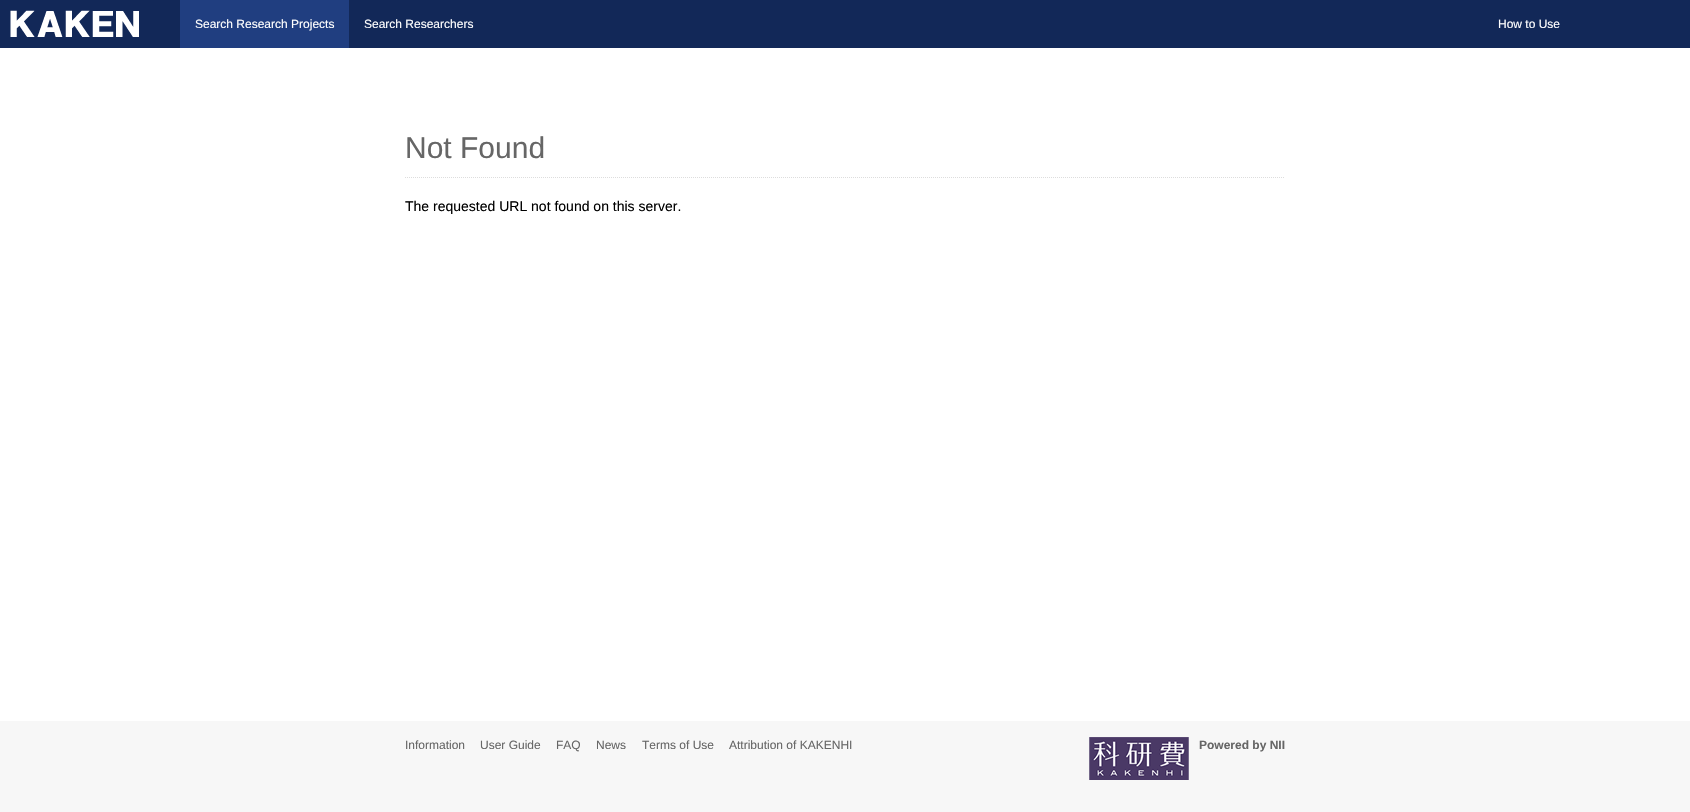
#include "include/core/SkBlurTypes.h"
#include "include/core/SkCanvas.h"
#include "include/core/SkData.h"
#include "include/core/SkFont.h"
#include "include/core/SkFontMgr.h"
#include "include/core/SkImage.h"
#include "include/core/SkMaskFilter.h"
#include "include/core/SkPaint.h"
#include "include/core/SkPathBuilder.h"
#include "include/core/SkTextBlob.h"
#include "include/effects/SkDashPathEffect.h"
#include "include/effects/SkGradientShader.h"
#include "include/utils/SkParsePath.h"

extern sk_sp<SkFontMgr> fontMgr;

static SkFont font(const char* family, int weight, float size, bool italic = false) {
    SkFontStyle style(weight, SkFontStyle::kNormal_Width,
        italic ? SkFontStyle::kItalic_Slant : SkFontStyle::kUpright_Slant);
    SkFont result(fontMgr->matchFamilyStyle(family, style), size);
    result.setSubpixel(true);
    return result;
}

static void drawLabel(SkCanvas* canvas, const char* s, float x, float y, const SkFont& font, SkColor color) {
    SkPaint ink(SkColor4f::FromColor(color));
    ink.setAntiAlias(true);
    canvas->drawString(s, x, y, font, ink);
}

static void fillRect(SkCanvas* canvas, float x, float y, float w, float h, SkColor color) {
    SkPaint ink(SkColor4f::FromColor(color));
    ink.setAntiAlias(true);
    canvas->drawRect(SkRect::MakeXYWH(x, y, w, h), ink);
}

static void drawPhoto(SkCanvas* canvas, const char* path, float x, float y, float w, float h) {
    auto image = SkImages::DeferredFromEncodedData(SkData::MakeFromFileName(path));
    canvas->drawImageRect(image, SkRect::MakeXYWH(x, y, w, h), SkSamplingOptions());
}

static SkPath parsePath(const char* data, bool evenOdd = false) {
    SkPath result = *SkParsePath::FromSVGString(data);
    if (evenOdd) result.setFillType(SkPathFillType::kEvenOdd);
    return result;
}

void draw(SkCanvas* canvas) {
    SkPaint paint;
    paint.setAntiAlias(true);
    canvas->clear(0xFFFFFFFF);
    fillRect(canvas, 0, 0, 1690, 48, 0xFF122858);
    drawPhoto(canvas, "assets/img1.png", 10, 10, 129, 27);
    fillRect(canvas, 180, 0, 169, 48, 0xFF203E80);
    SkFont font1 = font("Liberation Sans", 400, 12);
    drawLabel(canvas, "Search Research Projects", 195, 28, font1, 0xFFFFFFFF);
    drawLabel(canvas, "Search Researchers", 364, 28, font1, 0xFFFFFFFF);
    drawLabel(canvas, "How to Use", 1498, 28, font1, 0xFFFFFFFF);
    paint.setStroke(true);
    paint.setStrokeWidth(1);
    paint.setColor(0xFFDDDDDD);
    paint.setPathEffect(SkDashPathEffect::Make({{1, 1}}, 0));
    canvas->drawPath(parsePath("M405 177.5H1285"), paint);
    paint.setPathEffect(nullptr);
    SkFont font2 = font("Liberation Sans", 400, 30);
    drawLabel(canvas, "Not Found", 405, 158, font2, 0xFF666666);
    SkFont font3 = font("Liberation Sans", 400, 14);
    drawLabel(canvas, "The requested URL not found on this server.", 405, 211, font3, 0xFF000000);
    fillRect(canvas, 0, 721, 1690, 91, 0xFFF7F7F7);
    drawLabel(canvas, "Information", 405, 749, font1, 0xFF666666);
    drawLabel(canvas, "User Guide", 480, 749, font1, 0xFF666666);
    drawLabel(canvas, "FAQ", 556, 749, font1, 0xFF666666);
    drawLabel(canvas, "News", 596, 749, font1, 0xFF666666);
    drawLabel(canvas, "Terms of Use", 642, 749, font1, 0xFF666666);
    drawLabel(canvas, "Attribution of KAKENHI", 729, 749, font1, 0xFF666666);
    drawPhoto(canvas, "assets/img2.png", 1089, 737, 100, 43);
    SkFont font4 = font("Liberation Sans", 700, 12);
    drawLabel(canvas, "Powered by NII", 1199, 749, font4, 0xFF666666);
}
